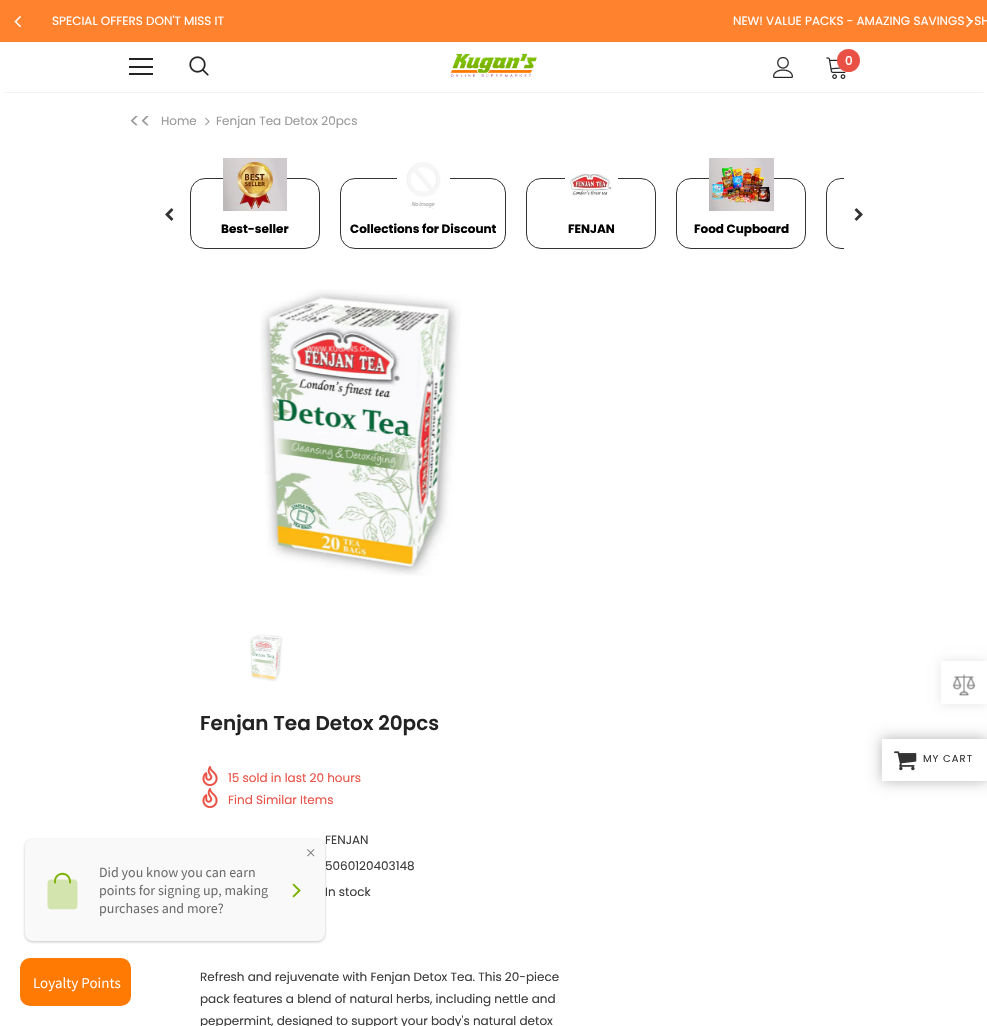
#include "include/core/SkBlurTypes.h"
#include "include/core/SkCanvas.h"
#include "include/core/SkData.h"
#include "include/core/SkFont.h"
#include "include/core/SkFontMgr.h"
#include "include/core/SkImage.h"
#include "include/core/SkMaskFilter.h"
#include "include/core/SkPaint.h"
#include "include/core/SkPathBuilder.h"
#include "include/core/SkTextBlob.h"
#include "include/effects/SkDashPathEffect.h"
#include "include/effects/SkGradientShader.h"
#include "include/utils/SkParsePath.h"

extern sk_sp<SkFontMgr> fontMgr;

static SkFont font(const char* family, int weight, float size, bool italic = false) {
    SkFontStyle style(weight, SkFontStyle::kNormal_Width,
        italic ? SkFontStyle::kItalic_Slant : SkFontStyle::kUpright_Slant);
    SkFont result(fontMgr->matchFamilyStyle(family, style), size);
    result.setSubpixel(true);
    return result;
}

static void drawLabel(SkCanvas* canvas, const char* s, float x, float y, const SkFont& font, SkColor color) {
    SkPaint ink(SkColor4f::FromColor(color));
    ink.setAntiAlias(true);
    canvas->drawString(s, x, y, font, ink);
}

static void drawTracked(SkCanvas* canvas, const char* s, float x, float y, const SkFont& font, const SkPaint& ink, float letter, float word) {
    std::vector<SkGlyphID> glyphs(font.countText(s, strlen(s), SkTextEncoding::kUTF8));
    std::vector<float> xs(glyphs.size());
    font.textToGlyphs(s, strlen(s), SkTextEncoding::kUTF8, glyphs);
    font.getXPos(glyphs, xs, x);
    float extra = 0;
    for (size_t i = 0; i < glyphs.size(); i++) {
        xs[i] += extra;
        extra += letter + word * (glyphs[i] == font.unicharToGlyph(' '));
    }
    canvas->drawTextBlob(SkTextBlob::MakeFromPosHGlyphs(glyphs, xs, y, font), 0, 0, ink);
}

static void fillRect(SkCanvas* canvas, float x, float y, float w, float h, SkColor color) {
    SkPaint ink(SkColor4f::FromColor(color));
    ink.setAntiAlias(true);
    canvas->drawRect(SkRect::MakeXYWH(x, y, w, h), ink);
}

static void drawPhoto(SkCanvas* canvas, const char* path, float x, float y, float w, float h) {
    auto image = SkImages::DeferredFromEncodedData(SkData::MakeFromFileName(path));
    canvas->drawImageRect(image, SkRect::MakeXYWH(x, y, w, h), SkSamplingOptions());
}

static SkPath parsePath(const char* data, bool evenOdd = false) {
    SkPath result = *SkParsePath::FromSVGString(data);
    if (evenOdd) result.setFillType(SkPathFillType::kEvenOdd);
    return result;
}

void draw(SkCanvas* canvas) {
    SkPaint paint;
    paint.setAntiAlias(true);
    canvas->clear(0xFFFFFFFF);
    fillRect(canvas, 0, 0, 987, 42, 0xFFFF822E);
    drawPhoto(canvas, "assets/img1.png", 14, 16, 7, 12);
    SkFont font1 = font("Poppins", 400, 12);
    drawLabel(canvas, "SPECIAL OFFERS DON'T MISS IT", 52, 25, font1, 0xFFFFFFFF);
    drawLabel(canvas, "NEW! VALUE PACKS - AMAZING SAVINGS -SH", 733, 25, font1, 0xFFFFFFFF);
    drawPhoto(canvas, "assets/img2.png", 966, 16, 7, 12);
    canvas->save();
    canvas->clipRect(SkRect::MakeXYWH(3, 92, 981, 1));
    paint.setColor(0x1F000000);
    paint.setMaskFilter(SkMaskFilter::MakeBlur(kNormal_SkBlurStyle, 1.5f));
    canvas->drawRect(SkRect::MakeXYWH(3, 48, 981, 44), paint);
    paint.setMaskFilter(nullptr);
    canvas->restore();
    fillRect(canvas, 129, 58, 24, 2, 0xFF232323);
    fillRect(canvas, 129, 66, 24, 2, 0xFF232323);
    fillRect(canvas, 129, 73, 24, 2, 0xFF232323);
    drawPhoto(canvas, "assets/img3.png", 189, 56, 20, 20);
    drawPhoto(canvas, "assets/img4.png", 450, 53, 87, 24);
    drawPhoto(canvas, "assets/img5.png", 773, 57, 20, 21);
    drawPhoto(canvas, "assets/img6.png", 826, 57, 20, 22);
    paint.setColor(0xFFE95144);
    canvas->drawCircle(848.5f, 60.5f, 11.5f, paint);
    SkFont font2 = font("Poppins", 500, 12);
    drawLabel(canvas, "0", 845, 65, font2, 0xFFFFFFFF);
    SkFont font3 = font("Poppins", 400, 20);
    drawLabel(canvas, "<<", 129, 128, font3, 0xFF999999);
    drawLabel(canvas, "Home", 161, 125, font1, 0xFF999999);
    drawPhoto(canvas, "assets/img7.png", 205, 117, 5, 9);
    drawLabel(canvas, "Fenjan Tea Detox 20pcs", 216, 125, font1, 0xFF999999);
    drawPhoto(canvas, "assets/img8.png", 165, 208, 9, 13);
    canvas->save();
    canvas->clipRect(SkRect::MakeXYWH(180, 158, 664, 116));
    paint.setStroke(true);
    paint.setStrokeWidth(1);
    paint.setColor(0xFF333333);
    canvas->drawRoundRect(SkRect::MakeXYWH(826.5f, 178.5f, 129, 70), 14.5f, 14.5f, paint);
    canvas->restore();
    drawPhoto(canvas, "assets/img9.png", 854, 208, 9, 13);
    canvas->drawRoundRect(SkRect::MakeXYWH(190.5f, 178.5f, 129, 70), 14.5f, 14.5f, paint);
    drawPhoto(canvas, "assets/img10.png", 223, 158, 64, 53);
    SkFont font4 = font("Poppins", 700, 12);
    drawLabel(canvas, "Best-seller", 221, 233, font4, 0xFF000000);
    canvas->drawRoundRect(SkRect::MakeXYWH(340.5f, 178.5f, 165, 70), 14.5f, 14.5f, paint);
    drawPhoto(canvas, "assets/img11.png", 397, 162, 53, 47);
    drawLabel(canvas, "Collections for Discount", 350, 233, font4, 0xFF000000);
    canvas->drawRoundRect(SkRect::MakeXYWH(526.5f, 178.5f, 129, 70), 14.5f, 14.5f, paint);
    drawPhoto(canvas, "assets/img12.png", 565, 174, 53, 22);
    drawLabel(canvas, "FENJAN", 568, 233, font4, 0xFF000000);
    canvas->drawRoundRect(SkRect::MakeXYWH(676.5f, 178.5f, 129, 70), 14.5f, 14.5f, paint);
    drawPhoto(canvas, "assets/img13.png", 709, 158, 65, 53);
    drawLabel(canvas, "Food Cupboard", 694, 233, font4, 0xFF000000);
    drawPhoto(canvas, "assets/img14.png", 260, 289, 201, 287);
    drawPhoto(canvas, "assets/img15.png", 250, 634, 33, 48);
    SkFont font5 = font("Poppins", 600, 20);
    drawLabel(canvas, "Fenjan Tea Detox 20pcs", 200, 730, font5, 0xFF232323);
    drawPhoto(canvas, "assets/img16.png", 202, 766, 16, 20);
    drawLabel(canvas, "15 sold in last 20 hours", 228, 782, font1, 0xFFE95144);
    drawPhoto(canvas, "assets/img16.png", 202, 788, 16, 20);
    drawLabel(canvas, "Find Similar Items", 228, 804, font1, 0xFFE95144);
    drawLabel(canvas, "FENJAN", 325, 844, font1, 0xFF3C3C3C);
    drawLabel(canvas, "5060120403148", 325, 870, font1, 0xFF3C3C3C);
    drawLabel(canvas, "In stock", 325, 896, font1, 0xFF3C3C3C);
    drawLabel(canvas, "Refresh and rejuvenate with Fenjan Detox Tea. This 20-piece", 200, 981, font1, 0xFF3C3C3C);
    drawLabel(canvas, "pack features a blend of natural herbs, including nettle and", 200, 1003, font1, 0xFF3C3C3C);
    drawLabel(canvas, "peppermint, designed to support your body's natural detox", 200, 1025, font1, 0xFF3C3C3C);
    canvas->save();
    canvas->clipPath(parsePath("M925 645H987V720H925ZM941 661H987V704H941Z", true), true);
    paint.setStroke(false);
    paint.setColor(0x1A000000);
    paint.setMaskFilter(SkMaskFilter::MakeBlur(kNormal_SkBlurStyle, 5));
    canvas->drawRect(SkRect::MakeXYWH(941, 661, 46, 43), paint);
    paint.setMaskFilter(nullptr);
    canvas->restore();
    drawPhoto(canvas, "assets/img17.png", 952, 674, 24, 22);
    paint.setColor(0x33000000);
    paint.setMaskFilter(SkMaskFilter::MakeBlur(kNormal_SkBlurStyle, 7.5f));
    canvas->drawRect(SkRect::MakeXYWH(882, 739, 105, 42), paint);
    paint.setMaskFilter(nullptr);
    paint.setColor(0x1A000000);
    paint.setMaskFilter(SkMaskFilter::MakeBlur(kNormal_SkBlurStyle, 5));
    canvas->drawRect(SkRect::MakeXYWH(882, 738, 105, 43), paint);
    paint.setMaskFilter(nullptr);
    fillRect(canvas, 882, 739, 105, 42, 0xFFFFFFFF);
    drawPhoto(canvas, "assets/img18.png", 894, 751, 23, 20);
    SkFont font6 = font("Poppins", 400, 10);
    paint.setColor(0xFF333333);
    drawTracked(canvas, "MY CART", 923, 762, font6, paint, 1, 0);
    drawPhoto(canvas, "assets/img19.png", 23, 838, 304, 106);
    drawPhoto(canvas, "assets/img20.png", 20, 958, 111, 48);
}
